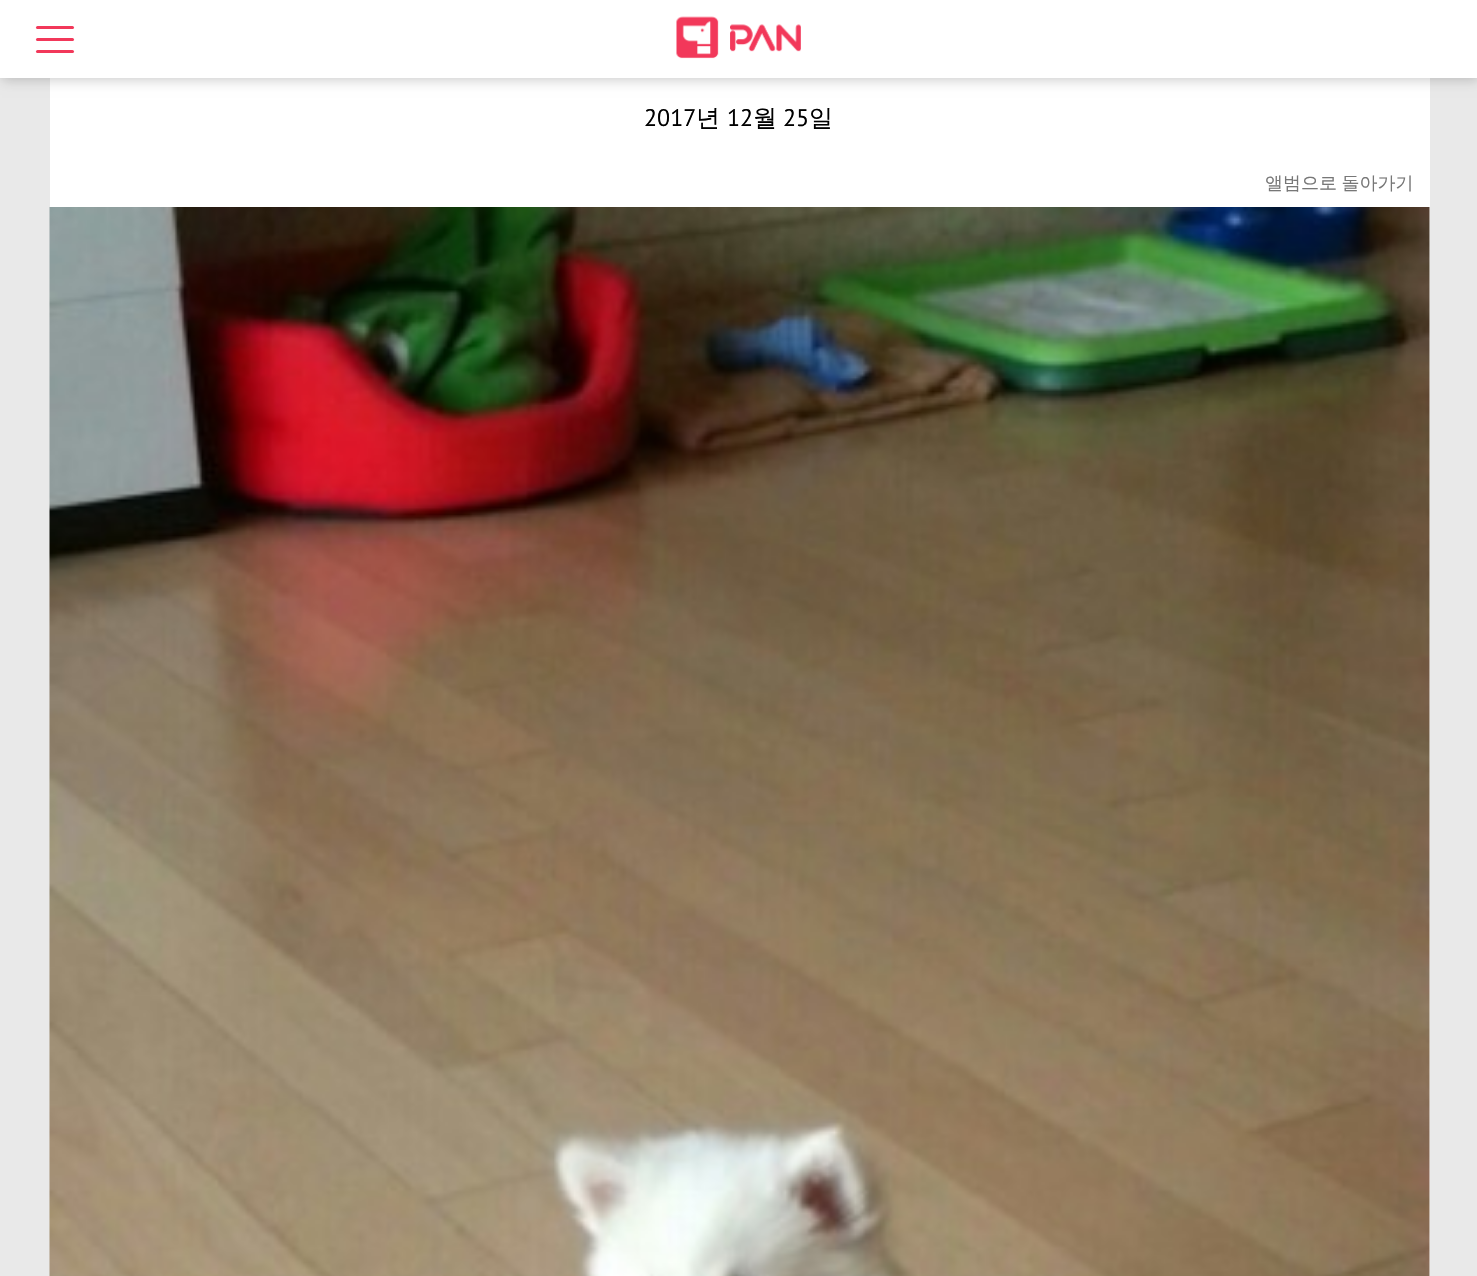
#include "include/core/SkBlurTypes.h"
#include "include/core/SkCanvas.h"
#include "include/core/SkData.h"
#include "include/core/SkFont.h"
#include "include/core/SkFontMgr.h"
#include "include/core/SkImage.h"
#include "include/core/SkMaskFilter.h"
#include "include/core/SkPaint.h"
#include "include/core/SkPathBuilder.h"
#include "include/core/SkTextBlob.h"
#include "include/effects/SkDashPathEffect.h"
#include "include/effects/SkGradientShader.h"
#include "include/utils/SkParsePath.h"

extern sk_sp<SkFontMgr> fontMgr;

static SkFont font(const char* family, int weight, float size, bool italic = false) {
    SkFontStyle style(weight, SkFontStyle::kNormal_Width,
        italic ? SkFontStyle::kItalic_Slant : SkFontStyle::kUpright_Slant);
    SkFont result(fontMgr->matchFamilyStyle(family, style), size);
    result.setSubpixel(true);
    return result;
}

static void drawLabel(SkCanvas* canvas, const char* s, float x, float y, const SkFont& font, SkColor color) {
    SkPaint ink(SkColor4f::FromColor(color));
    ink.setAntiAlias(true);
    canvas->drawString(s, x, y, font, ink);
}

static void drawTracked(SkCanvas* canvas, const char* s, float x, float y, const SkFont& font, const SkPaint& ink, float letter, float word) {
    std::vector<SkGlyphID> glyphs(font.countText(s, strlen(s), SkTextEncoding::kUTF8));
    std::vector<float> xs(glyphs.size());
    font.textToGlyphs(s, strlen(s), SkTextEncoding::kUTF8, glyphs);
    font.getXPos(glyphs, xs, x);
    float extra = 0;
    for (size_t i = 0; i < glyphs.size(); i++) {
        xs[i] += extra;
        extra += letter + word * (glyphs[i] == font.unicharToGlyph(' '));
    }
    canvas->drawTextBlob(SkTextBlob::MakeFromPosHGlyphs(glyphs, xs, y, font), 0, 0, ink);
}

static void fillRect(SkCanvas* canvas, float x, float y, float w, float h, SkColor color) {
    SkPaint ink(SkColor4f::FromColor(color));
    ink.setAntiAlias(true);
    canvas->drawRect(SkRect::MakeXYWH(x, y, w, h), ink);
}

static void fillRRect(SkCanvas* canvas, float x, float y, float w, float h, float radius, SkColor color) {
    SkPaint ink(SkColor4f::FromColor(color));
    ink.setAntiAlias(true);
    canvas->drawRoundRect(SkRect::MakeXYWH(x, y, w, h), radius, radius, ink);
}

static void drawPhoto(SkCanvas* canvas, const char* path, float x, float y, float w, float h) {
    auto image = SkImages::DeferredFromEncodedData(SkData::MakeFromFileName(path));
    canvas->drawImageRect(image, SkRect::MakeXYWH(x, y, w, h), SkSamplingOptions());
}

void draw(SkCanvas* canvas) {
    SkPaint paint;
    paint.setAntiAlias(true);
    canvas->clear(0xFFE9E9E9);
    fillRect(canvas, 50, 78, 1380, 1198, 0xFFFFFFFF);
    paint.setColor(0x33000000);
    paint.setMaskFilter(SkMaskFilter::MakeBlur(kNormal_SkBlurStyle, 6));
    canvas->drawRect(SkRect::MakeXYWH(2, 0, 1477, 80), paint);
    paint.setMaskFilter(nullptr);
    fillRect(canvas, 0, 0, 1477, 78, 0xFFFFFFFF);
    drawPhoto(canvas, "assets/img1.png", 676, 16, 125, 43);
    fillRRect(canvas, 36, 26, 38, 3, 1.5f, 0xFFF2385A);
    fillRRect(canvas, 36, 38, 38, 3, 1.5f, 0xFFF2385A);
    fillRRect(canvas, 36, 50, 38, 3, 1.5f, 0xFFF2385A);
    SkFont font1 = font("PT Sans", 400, 24);
    drawLabel(canvas, "2017", 644, 126, font1, 0xFF000000);
    SkFont font2 = font("WenQuanYi Zen Hei", 500, 24);
    drawLabel(canvas, "년", 696, 126, font2, 0xFF000000);
    drawLabel(canvas, "12", 727, 126, font1, 0xFF000000);
    drawLabel(canvas, "월", 753, 126, font2, 0xFF000000);
    drawLabel(canvas, "25", 783, 126, font1, 0xFF000000);
    drawLabel(canvas, "일", 809, 126, font2, 0xFF000000);
    SkFont font3 = font("WenQuanYi Zen Hei", 500, 18);
    paint.setColor(0xFF777777);
    drawTracked(canvas, "앨범으로 돌아가기", 1265, 189, font3, paint, 0, -1);
    drawPhoto(canvas, "assets/img2.png", 49, 207, 1381, 1069);
}
